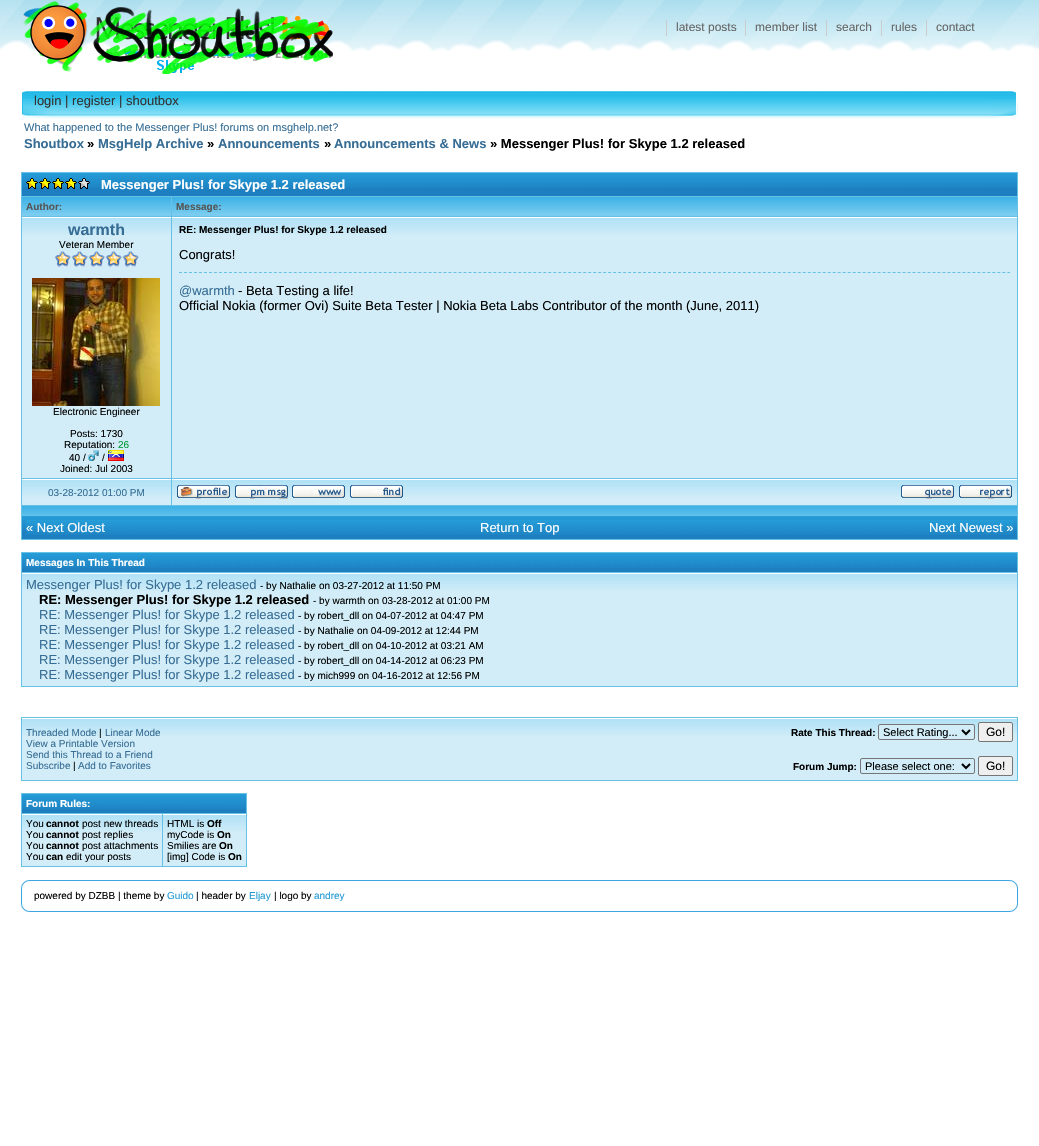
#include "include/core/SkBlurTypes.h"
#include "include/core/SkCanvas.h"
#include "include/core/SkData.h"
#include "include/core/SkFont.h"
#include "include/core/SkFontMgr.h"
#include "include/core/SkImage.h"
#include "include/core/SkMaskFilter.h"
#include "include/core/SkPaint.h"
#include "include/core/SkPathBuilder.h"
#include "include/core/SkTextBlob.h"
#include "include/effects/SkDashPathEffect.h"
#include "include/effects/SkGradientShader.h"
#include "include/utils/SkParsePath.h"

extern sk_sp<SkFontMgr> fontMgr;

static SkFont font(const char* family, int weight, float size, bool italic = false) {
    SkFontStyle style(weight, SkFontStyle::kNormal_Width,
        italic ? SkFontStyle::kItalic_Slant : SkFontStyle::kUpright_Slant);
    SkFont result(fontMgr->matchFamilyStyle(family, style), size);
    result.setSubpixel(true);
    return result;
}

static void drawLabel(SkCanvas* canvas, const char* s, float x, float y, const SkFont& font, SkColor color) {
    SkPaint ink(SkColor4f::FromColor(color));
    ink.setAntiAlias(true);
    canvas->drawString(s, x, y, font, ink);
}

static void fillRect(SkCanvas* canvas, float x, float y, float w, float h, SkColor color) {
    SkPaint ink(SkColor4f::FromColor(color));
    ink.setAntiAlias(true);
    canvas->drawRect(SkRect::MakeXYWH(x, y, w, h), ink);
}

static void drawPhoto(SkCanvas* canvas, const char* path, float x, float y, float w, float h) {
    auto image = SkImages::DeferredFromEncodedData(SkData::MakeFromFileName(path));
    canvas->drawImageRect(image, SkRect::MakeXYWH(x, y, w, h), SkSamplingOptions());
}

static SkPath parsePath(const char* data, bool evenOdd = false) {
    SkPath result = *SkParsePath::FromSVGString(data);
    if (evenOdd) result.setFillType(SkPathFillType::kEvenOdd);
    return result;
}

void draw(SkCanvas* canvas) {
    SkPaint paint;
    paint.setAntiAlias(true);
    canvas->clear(0xFFFFFFFF);
    drawPhoto(canvas, "assets/img1.png", 0, 0, 1039, 51);
    drawPhoto(canvas, "assets/img2.png", 23, 1, 310, 73);
    fillRect(canvas, 666, 20, 1, 16, 0xFFCCCCCC);
    SkFont font1 = font("Liberation Sans", 400, 12);
    drawLabel(canvas, "latest posts", 676, 31, font1, 0xFF666666);
    fillRect(canvas, 745, 20, 1, 16, 0xFFCCCCCC);
    drawLabel(canvas, "member list", 755, 31, font1, 0xFF666666);
    fillRect(canvas, 826, 20, 1, 16, 0xFFCCCCCC);
    drawLabel(canvas, "search", 836, 31, font1, 0xFF666666);
    fillRect(canvas, 881, 20, 1, 16, 0xFFCCCCCC);
    drawLabel(canvas, "rules", 891, 31, font1, 0xFF666666);
    fillRect(canvas, 926, 20, 1, 16, 0xFFCCCCCC);
    drawLabel(canvas, "contact", 936, 31, font1, 0xFF666666);
    drawPhoto(canvas, "assets/img3.png", 61, 91, 930, 28);
    drawPhoto(canvas, "assets/img4.png", 991, 91, 27, 28);
    drawPhoto(canvas, "assets/img5.png", 21, 91, 40, 28);
    SkFont font2 = font("Liberation Sans", 400, 13);
    drawLabel(canvas, "login | register | shoutbox", 34, 105, font2, 0xFF333333);
    SkFont font3 = font("Liberation Sans", 400, 11);
    drawLabel(canvas, "What happened to the Messenger Plus! forums on msghelp.net?", 24, 131, font3, 0xFF376D95);
    SkFont font4 = font("Liberation Sans", 700, 13);
    drawLabel(canvas, "Shoutbox", 24, 148, font4, 0xFF376D95);
    drawLabel(canvas, "»", 87, 148, font4, 0xFF000000);
    drawLabel(canvas, "MsgHelp Archive", 98, 148, font4, 0xFF376D95);
    drawLabel(canvas, "»", 207, 148, font4, 0xFF000000);
    drawLabel(canvas, "Announcements", 218, 148, font4, 0xFF376D95);
    drawLabel(canvas, "»", 324, 148, font4, 0xFF000000);
    drawLabel(canvas, "Announcements & News", 334, 148, font4, 0xFF376D95);
    drawLabel(canvas, "» Messenger Plus! for Skype 1.2 released", 490, 148, font4, 0xFF000000);
    fillRect(canvas, 21, 172, 997, 368, 0xFF67C1E4);
    fillRect(canvas, 22, 188, 995, 8, 0xFF1D7FBF);
    drawPhoto(canvas, "assets/img6.png", 22, 173, 995, 15);
    drawPhoto(canvas, "assets/img7.png", 26, 178, 64, 11);
    drawLabel(canvas, "Messenger Plus! for Skype 1.2 released", 101, 189, font4, 0xFFFFFFFF);
    fillRect(canvas, 22, 213, 149, 3, 0xFF79CCF0);
    drawPhoto(canvas, "assets/img8.png", 22, 197, 149, 16);
    SkFont font5 = font("Liberation Sans", 700, 10);
    drawLabel(canvas, "Author:", 26, 210, font5, 0xFF555555);
    fillRect(canvas, 172, 213, 845, 3, 0xFF79CCF0);
    drawPhoto(canvas, "assets/img9.png", 172, 197, 845, 16);
    drawLabel(canvas, "Message:", 176, 210, font5, 0xFF555555);
    fillRect(canvas, 22, 235, 149, 243, 0xFFD2EDF7);
    drawPhoto(canvas, "assets/img10.png", 22, 217, 149, 18);
    SkFont font6 = font("Liberation Sans", 700, 16);
    drawLabel(canvas, "warmth", 68, 235, font6, 0xFF376D95);
    SkFont font7 = font("Liberation Sans", 400, 10);
    drawLabel(canvas, "Veteran Member", 59, 248, font7, 0xFF000000);
    drawPhoto(canvas, "assets/img11.png", 54, 250, 17, 17);
    drawPhoto(canvas, "assets/img11.png", 71, 250, 17, 17);
    drawPhoto(canvas, "assets/img11.png", 88, 250, 17, 17);
    drawPhoto(canvas, "assets/img11.png", 105, 250, 17, 17);
    drawPhoto(canvas, "assets/img11.png", 122, 250, 17, 17);
    drawPhoto(canvas, "assets/img12.png", 32, 278, 128, 128);
    drawLabel(canvas, "Electronic Engineer", 53, 415, font7, 0xFF000000);
    drawLabel(canvas, "Posts: 1730", 70, 437, font7, 0xFF000000);
    drawLabel(canvas, "Reputation:", 64, 448, font7, 0xFF000000);
    drawLabel(canvas, "26", 118, 448, font7, 0xFF009933);
    drawLabel(canvas, "40 /", 69, 461, font7, 0xFF000000);
    drawPhoto(canvas, "assets/img13.png", 88, 450, 11, 11);
    drawLabel(canvas, "/", 102, 461, font7, 0xFF000000);
    drawPhoto(canvas, "assets/img14.png", 108, 450, 16, 11);
    drawLabel(canvas, "Joined: Jul 2003", 60, 472, font7, 0xFF000000);
    fillRect(canvas, 172, 235, 845, 243, 0xFFD2EDF7);
    drawPhoto(canvas, "assets/img15.png", 172, 217, 845, 18);
    drawLabel(canvas, "RE: Messenger Plus! for Skype 1.2 released", 179, 233, font5, 0xFF000000);
    drawLabel(canvas, "Congrats!", 179, 259, font2, 0xFF000000);
    paint.setStroke(true);
    paint.setStrokeWidth(1);
    paint.setColor(0xFF67C1E4);
    paint.setPathEffect(SkDashPathEffect::Make({{3, 1.99f}}, 0));
    canvas->drawPath(parsePath("M179 272.5H1010"), paint);
    paint.setPathEffect(nullptr);
    drawLabel(canvas, "@warmth", 179, 295, font2, 0xFF376D95);
    drawLabel(canvas, "- Beta Testing a life!", 238, 295, font2, 0xFF000000);
    drawLabel(canvas, "Official Nokia (former Ovi) Suite Beta Tester | Nokia Beta Labs Contributor of the month (June, 2011)", 179, 310, font2, 0xFF000000);
    fillRect(canvas, 22, 497, 149, 8, 0xFFD2EDF7);
    drawPhoto(canvas, "assets/img10.png", 22, 479, 149, 18);
    drawLabel(canvas, "03-28-2012 01:00 PM", 48, 496, font7, 0xFF376D95);
    fillRect(canvas, 172, 497, 845, 8, 0xFFD2EDF7);
    drawPhoto(canvas, "assets/img15.png", 172, 479, 845, 18);
    drawPhoto(canvas, "assets/img16.png", 177, 485, 53, 14);
    drawPhoto(canvas, "assets/img17.png", 235, 485, 53, 14);
    drawPhoto(canvas, "assets/img18.png", 292, 485, 53, 13);
    drawPhoto(canvas, "assets/img19.png", 350, 485, 53, 13);
    drawPhoto(canvas, "assets/img20.png", 901, 485, 53, 14);
    drawPhoto(canvas, "assets/img21.png", 959, 485, 53, 14);
    drawPhoto(canvas, "assets/img22.png", 22, 506, 995, 9);
    fillRect(canvas, 22, 531, 995, 8, 0xFF1D7FBF);
    drawPhoto(canvas, "assets/img6.png", 22, 516, 995, 15);
    drawPhoto(canvas, "assets/img23.png", 26, 520, 329, 15);
    drawLabel(canvas, "« Next Oldest", 26, 532, font2, 0xFFFFFFFF);
    drawPhoto(canvas, "assets/img23.png", 355, 520, 329, 15);
    drawLabel(canvas, "Return to Top", 480, 532, font2, 0xFFFFFFFF);
    drawPhoto(canvas, "assets/img23.png", 684, 520, 329, 15);
    drawLabel(canvas, "Next Newest »", 929, 532, font2, 0xFFFFFFFF);
    fillRect(canvas, 21, 552, 997, 135, 0xFF67C1E4);
    fillRect(canvas, 22, 568, 995, 4, 0xFF1D7FBF);
    drawPhoto(canvas, "assets/img6.png", 22, 553, 995, 15);
    drawLabel(canvas, "Messages In This Thread", 26, 566, font5, 0xFFFFFFFF);
    fillRect(canvas, 22, 591, 995, 95, 0xFFD2EDF7);
    drawPhoto(canvas, "assets/img24.png", 22, 573, 995, 18);
    drawLabel(canvas, "Messenger Plus! for Skype 1.2 released", 26, 589, font2, 0xFF376D95);
    drawLabel(canvas, "- by Nathalie on 03-27-2012 at 11:50 PM", 260, 589, font7, 0xFF000000);
    drawLabel(canvas, "RE: Messenger Plus! for Skype 1.2 released", 39, 604, font4, 0xFF000000);
    drawLabel(canvas, "- by warmth on 03-28-2012 at 01:00 PM", 313, 604, font7, 0xFF000000);
    drawLabel(canvas, "RE: Messenger Plus! for Skype 1.2 released", 39, 619, font2, 0xFF376D95);
    drawLabel(canvas, "- by robert_dll on 04-07-2012 at 04:47 PM", 298, 619, font7, 0xFF000000);
    drawLabel(canvas, "RE: Messenger Plus! for Skype 1.2 released", 39, 634, font2, 0xFF376D95);
    drawLabel(canvas, "- by Nathalie on 04-09-2012 at 12:44 PM", 298, 634, font7, 0xFF000000);
    drawLabel(canvas, "RE: Messenger Plus! for Skype 1.2 released", 39, 649, font2, 0xFF376D95);
    drawLabel(canvas, "- by robert_dll on 04-10-2012 at 03:21 AM", 298, 649, font7, 0xFF000000);
    drawLabel(canvas, "RE: Messenger Plus! for Skype 1.2 released", 39, 664, font2, 0xFF376D95);
    drawLabel(canvas, "- by robert_dll on 04-14-2012 at 06:23 PM", 298, 664, font7, 0xFF000000);
    drawLabel(canvas, "RE: Messenger Plus! for Skype 1.2 released", 39, 679, font2, 0xFF376D95);
    drawLabel(canvas, "- by mich999 on 04-16-2012 at 12:56 PM", 298, 679, font7, 0xFF000000);
    fillRect(canvas, 21, 717, 997, 64, 0xFF67C1E4);
    fillRect(canvas, 22, 736, 995, 44, 0xFFD2EDF7);
    drawPhoto(canvas, "assets/img24.png", 22, 718, 995, 18);
    drawLabel(canvas, "Threaded Mode", 26, 736, font7, 0xFF376D95);
    drawLabel(canvas, "|", 99, 736, font7, 0xFF000000);
    drawLabel(canvas, "Linear Mode", 105, 736, font7, 0xFF376D95);
    drawLabel(canvas, "View a Printable Version", 26, 747, font7, 0xFF376D95);
    drawLabel(canvas, "Send this Thread to a Friend", 26, 758, font7, 0xFF376D95);
    drawLabel(canvas, "Subscribe", 26, 769, font7, 0xFF376D95);
    drawLabel(canvas, "|", 73, 769, font7, 0xFF000000);
    drawLabel(canvas, "Add to Favorites", 78, 769, font7, 0xFF376D95);
    drawLabel(canvas, "Rate This Thread:", 791, 736, font5, 0xFF000000);
    paint.setStroke(false);
    paint.setColor(0xFFD2EDF7);
    canvas->drawRoundRect(SkRect::MakeXYWH(878.5f, 724.5f, 96, 15), 1.5f, 1.5f, paint);
    paint.setStroke(true);
    paint.setColor(0xFF767676);
    canvas->drawRoundRect(SkRect::MakeXYWH(878.5f, 724.5f, 96, 15), 1.5f, 1.5f, paint);
    paint.setStrokeWidth(2);
    paint.setColor(0xFF000000);
    canvas->drawPath(parsePath("M962 730L966 734L970 730"), paint);
    drawLabel(canvas, "Select Rating...", 883, 736, font3, 0xFF000000);
    paint.setStroke(false);
    paint.setColor(0xFFEFEFEF);
    canvas->drawRoundRect(SkRect::MakeXYWH(978.5f, 722.5f, 34, 19), 1.5f, 1.5f, paint);
    paint.setStroke(true);
    paint.setStrokeWidth(1);
    paint.setColor(0xFF767676);
    canvas->drawRoundRect(SkRect::MakeXYWH(978.5f, 722.5f, 34, 19), 1.5f, 1.5f, paint);
    drawLabel(canvas, "Go!", 986, 736, font1, 0xFF000000);
    drawLabel(canvas, "Forum Jump:", 793, 770, font5, 0xFF000000);
    canvas->drawRoundRect(SkRect::MakeXYWH(860.5f, 758.5f, 114, 15), 1.5f, 1.5f, paint);
    paint.setStrokeWidth(2);
    paint.setColor(0xFF000000);
    canvas->drawPath(parsePath("M962 764L966 768L970 764"), paint);
    drawLabel(canvas, "Please select one:", 865, 770, font3, 0xFF000000);
    paint.setStroke(false);
    paint.setColor(0xFFEFEFEF);
    canvas->drawRoundRect(SkRect::MakeXYWH(978.5f, 756.5f, 34, 19), 1.5f, 1.5f, paint);
    paint.setStroke(true);
    paint.setStrokeWidth(1);
    paint.setColor(0xFF767676);
    canvas->drawRoundRect(SkRect::MakeXYWH(978.5f, 756.5f, 34, 19), 1.5f, 1.5f, paint);
    drawLabel(canvas, "Go!", 986, 770, font1, 0xFF000000);
    fillRect(canvas, 21, 793, 226, 74, 0xFF67C1E4);
    fillRect(canvas, 22, 809, 224, 4, 0xFF1D7FBF);
    drawPhoto(canvas, "assets/img25.png", 22, 794, 224, 15);
    drawLabel(canvas, "Forum Rules:", 26, 807, font5, 0xFFFFFFFF);
    fillRect(canvas, 22, 832, 140, 34, 0xFFD2EDF7);
    drawPhoto(canvas, "assets/img26.png", 22, 814, 140, 18);
    drawLabel(canvas, "You", 26, 827, font7, 0xFF000000);
    drawLabel(canvas, "cannot", 46, 827, font5, 0xFF000000);
    drawLabel(canvas, "post new threads", 82, 827, font7, 0xFF000000);
    drawLabel(canvas, "You", 26, 838, font7, 0xFF000000);
    drawLabel(canvas, "cannot", 46, 838, font5, 0xFF000000);
    drawLabel(canvas, "post replies", 82, 838, font7, 0xFF000000);
    drawLabel(canvas, "You", 26, 849, font7, 0xFF000000);
    drawLabel(canvas, "cannot", 46, 849, font5, 0xFF000000);
    drawLabel(canvas, "post attachments", 82, 849, font7, 0xFF000000);
    drawLabel(canvas, "You", 26, 860, font7, 0xFF000000);
    drawLabel(canvas, "can", 46, 860, font5, 0xFF000000);
    drawLabel(canvas, "edit your posts", 66, 860, font7, 0xFF000000);
    fillRect(canvas, 163, 832, 83, 34, 0xFFD2EDF7);
    drawPhoto(canvas, "assets/img27.png", 163, 814, 83, 18);
    drawLabel(canvas, "HTML is", 167, 827, font7, 0xFF000000);
    drawLabel(canvas, "Off", 207, 827, font5, 0xFF000000);
    drawLabel(canvas, "myCode is", 167, 838, font7, 0xFF000000);
    drawLabel(canvas, "On", 217, 838, font5, 0xFF000000);
    drawLabel(canvas, "Smilies are", 167, 849, font7, 0xFF000000);
    drawLabel(canvas, "On", 219, 849, font5, 0xFF000000);
    drawLabel(canvas, "[img] Code is", 167, 860, font7, 0xFF000000);
    drawLabel(canvas, "On", 228, 860, font5, 0xFF000000);
    fillRect(canvas, 21, 880, 988, 1, 0xFF39A4E1);
    fillRect(canvas, 30, 911, 988, 1, 0xFF39A4E1);
    fillRect(canvas, 21, 881, 1, 30, 0xFF39A4E1);
    fillRect(canvas, 1017, 881, 1, 30, 0xFF39A4E1);
    drawPhoto(canvas, "assets/img28.png", 21, 904, 9, 8);
    drawPhoto(canvas, "assets/img29.png", 1010, 903, 8, 9);
    drawPhoto(canvas, "assets/img30.png", 21, 880, 8, 9);
    drawPhoto(canvas, "assets/img31.png", 1009, 880, 9, 8);
    drawLabel(canvas, "powered by DZBB | theme by", 34, 899, font7, 0xFF000000);
    drawLabel(canvas, "Guido", 167, 899, font7, 0xFF249AD4);
    drawLabel(canvas, "| header by", 196, 899, font7, 0xFF000000);
    drawLabel(canvas, "Eljay", 249, 899, font7, 0xFF249AD4);
    drawLabel(canvas, "| logo by", 274, 899, font7, 0xFF000000);
    drawLabel(canvas, "andrey", 314, 899, font7, 0xFF249AD4);
}
